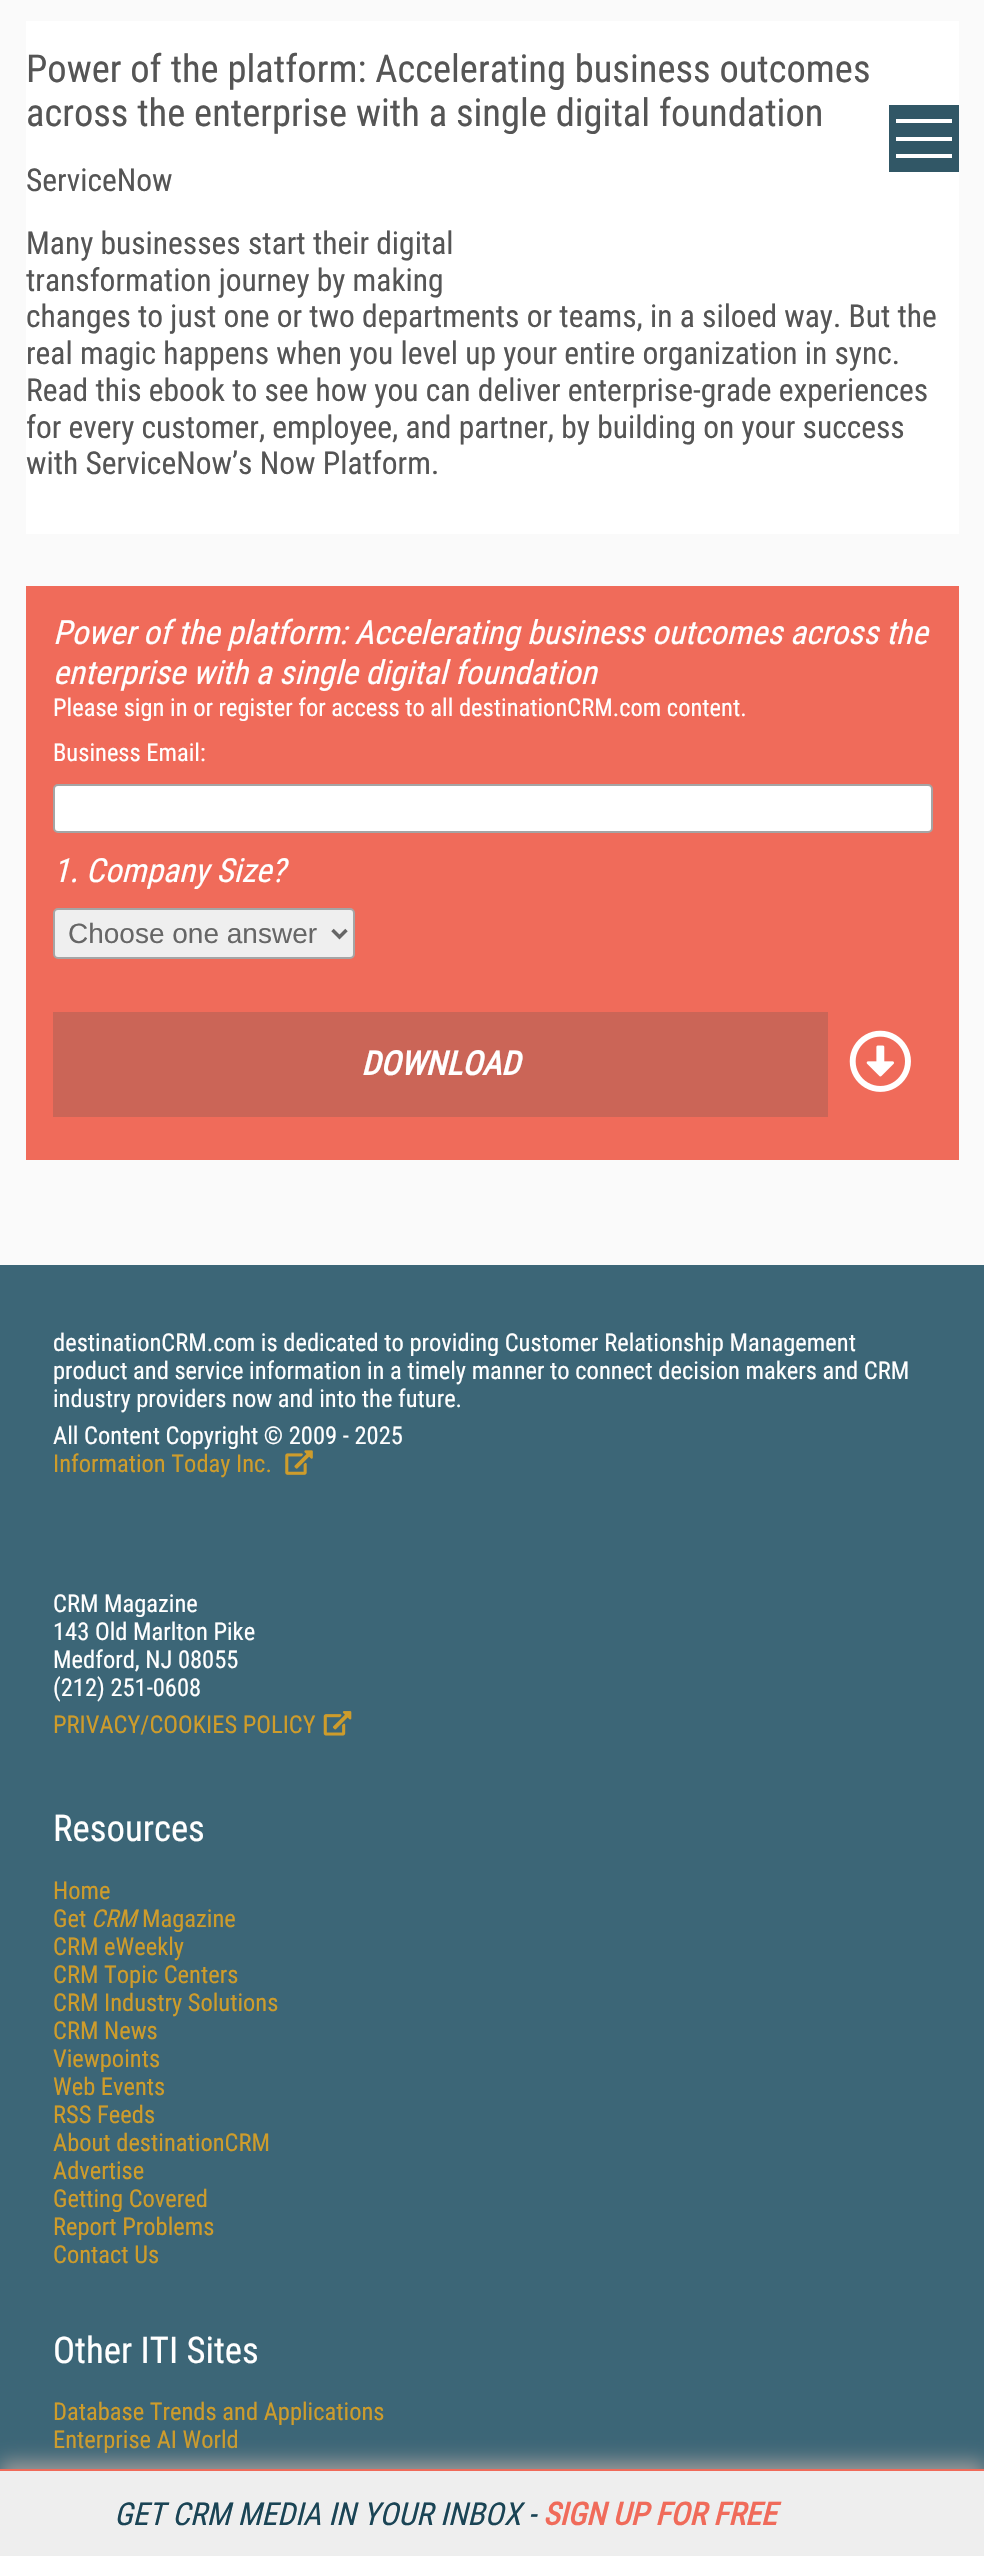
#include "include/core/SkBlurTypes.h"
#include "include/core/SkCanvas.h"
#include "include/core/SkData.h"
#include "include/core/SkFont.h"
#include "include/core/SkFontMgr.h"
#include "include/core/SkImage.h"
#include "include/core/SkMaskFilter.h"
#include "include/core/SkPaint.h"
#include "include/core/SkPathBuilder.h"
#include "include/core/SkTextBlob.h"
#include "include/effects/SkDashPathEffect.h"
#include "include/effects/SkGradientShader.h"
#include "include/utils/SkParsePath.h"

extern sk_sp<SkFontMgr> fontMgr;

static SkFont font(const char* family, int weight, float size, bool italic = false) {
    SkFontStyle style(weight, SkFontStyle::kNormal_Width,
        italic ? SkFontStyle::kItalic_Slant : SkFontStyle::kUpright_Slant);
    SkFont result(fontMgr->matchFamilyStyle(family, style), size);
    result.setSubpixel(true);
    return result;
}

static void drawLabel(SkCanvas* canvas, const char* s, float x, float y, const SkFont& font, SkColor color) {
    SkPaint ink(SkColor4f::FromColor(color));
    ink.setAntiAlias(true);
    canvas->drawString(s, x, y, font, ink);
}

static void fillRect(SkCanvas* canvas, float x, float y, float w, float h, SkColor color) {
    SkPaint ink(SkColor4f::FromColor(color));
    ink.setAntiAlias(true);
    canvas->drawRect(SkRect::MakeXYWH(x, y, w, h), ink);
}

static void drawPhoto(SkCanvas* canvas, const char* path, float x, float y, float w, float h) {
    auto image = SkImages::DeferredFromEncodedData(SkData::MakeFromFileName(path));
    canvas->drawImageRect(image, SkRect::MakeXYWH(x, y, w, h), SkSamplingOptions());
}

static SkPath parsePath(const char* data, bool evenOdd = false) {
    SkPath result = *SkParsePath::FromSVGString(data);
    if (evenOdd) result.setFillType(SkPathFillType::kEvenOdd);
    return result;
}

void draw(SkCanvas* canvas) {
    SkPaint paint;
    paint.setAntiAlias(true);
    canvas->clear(0xFFFAFAFA);
    fillRect(canvas, 26, 21, 933, 513, 0xFFFFFFFF);
    SkFont font1 = font("Roboto Condensed", 400, 38.5f);
    drawLabel(canvas, "Power of the platform: Accelerating business outcomes", 26, 82, font1, 0xFF555555);
    drawLabel(canvas, "across the enterprise with a single digital foundation", 26, 126, font1, 0xFF555555);
    SkFont font2 = font("Roboto Condensed", 400, 31.5f);
    drawLabel(canvas, "ServiceNow", 26, 191, font2, 0xFF555555);
    drawLabel(canvas, "Many businesses start their digital", 26, 254, font2, 0xFF555555);
    drawLabel(canvas, "transformation journey by making", 26, 291, font2, 0xFF555555);
    drawLabel(canvas, "changes to just one or two departments or teams, in a siloed way. But the", 26, 327, font2, 0xFF555555);
    drawLabel(canvas, "real magic happens when you level up your entire organization in sync.", 26, 364, font2, 0xFF555555);
    drawLabel(canvas, "Read this ebook to see how you can deliver enterprise-grade experiences", 26, 401, font2, 0xFF555555);
    drawLabel(canvas, "for every customer, employee, and partner, by building on your success", 26, 438, font2, 0xFF555555);
    drawLabel(canvas, "with ServiceNow’s Now Platform.", 26, 474, font2, 0xFF555555);
    fillRect(canvas, 26, 586, 933, 574, 0xFFF06B5A);
    SkFont font3 = font("Roboto Condensed", 400, 33.25f, true);
    drawLabel(canvas, "Power of the platform: Accelerating business outcomes across the", 53, 644, font3, 0xFFFFFFFF);
    drawLabel(canvas, "enterprise with a single digital foundation", 53, 684, font3, 0xFFFFFFFF);
    SkFont font4 = font("Roboto Condensed", 400, 24.5f);
    drawLabel(canvas, "Please sign in or register for access to all destinationCRM.com content.", 53, 716, font4, 0xFFFFFFFF);
    drawLabel(canvas, "Business Email:", 53, 761, font4, 0xFFFFFFFF);
    paint.setColor(0xFFFFFFFF);
    canvas->drawRoundRect(SkRect::MakeXYWH(54, 785, 878, 47), 4, 4, paint);
    paint.setStroke(true);
    paint.setStrokeWidth(2);
    paint.setColor(0xFFA5A5A5);
    canvas->drawRoundRect(SkRect::MakeXYWH(54, 785, 878, 47), 4, 4, paint);
    drawLabel(canvas, "1. Company Size?", 53, 882, font3, 0xFFFFFFFF);
    paint.setStroke(false);
    paint.setColor(0xFFEFEFEF);
    canvas->drawRoundRect(SkRect::MakeXYWH(54, 909, 300, 49), 4, 4, paint);
    paint.setStroke(true);
    paint.setColor(0xFFA5A5A5);
    canvas->drawRoundRect(SkRect::MakeXYWH(54, 909, 300, 49), 4, 4, paint);
    paint.setStrokeWidth(3.5f);
    paint.setColor(0xFF666666);
    canvas->drawPath(parsePath("M332.5 930L339.5 937L346.5 930"), paint);
    SkFont font5 = font("Liberation Sans", 400, 28);
    drawLabel(canvas, "Choose one answer", 68, 943, font5, 0xFF666666);
    fillRect(canvas, 53, 1012, 775, 105, 0xFFCB6557);
    SkFont font6 = font("Roboto Condensed", 700, 33.25f, true);
    drawLabel(canvas, "DOWNLOAD", 361, 1075, font6, 0xFFFFFFFF);
    drawPhoto(canvas, "assets/img1.png", 849, 1030, 62, 62);
    fillRect(canvas, 889, 105, 70, 67, 0xFF315766);
    fillRect(canvas, 896, 137, 56, 4, 0xFFFFFFFF);
    fillRect(canvas, 896, 119, 56, 4, 0xFFFFFFFF);
    fillRect(canvas, 896, 154, 56, 4, 0xFFFFFFFF);
    fillRect(canvas, 0, 1265, 984, 1204, 0xFF3C6677);
    drawLabel(canvas, "destinationCRM.com is dedicated to providing Customer Relationship Management", 53, 1351, font4, 0xFFFFFFFF);
    drawLabel(canvas, "product and service information in a timely manner to connect decision makers and CRM", 53, 1379, font4, 0xFFFFFFFF);
    drawLabel(canvas, "industry providers now and into the future.", 53, 1407, font4, 0xFFFFFFFF);
    drawLabel(canvas, "All Content Copyright © 2009 - 2025", 53, 1444, font4, 0xFFFFFFFF);
    drawLabel(canvas, "Information Today Inc.", 53, 1472, font4, 0xFFCE9C2B);
    drawPhoto(canvas, "assets/img2.png", 285, 1450, 28, 25);
    drawLabel(canvas, "CRM Magazine", 53, 1612, font4, 0xFFFFFFFF);
    drawLabel(canvas, "143 Old Marlton Pike", 53, 1640, font4, 0xFFFFFFFF);
    drawLabel(canvas, "Medford, NJ 08055", 53, 1668, font4, 0xFFFFFFFF);
    drawLabel(canvas, "(212) 251-0608", 53, 1696, font4, 0xFFFFFFFF);
    drawLabel(canvas, "PRIVACY/COOKIES POLICY", 53, 1733, font4, 0xFFCE9C2B);
    drawPhoto(canvas, "assets/img3.png", 323, 1711, 29, 25);
    SkFont font7 = font("Roboto Condensed", 400, 36.75f);
    drawLabel(canvas, "Resources", 53, 1841, font7, 0xFFFFFFFF);
    drawLabel(canvas, "Home", 53, 1899, font4, 0xFFCE9C2B);
    drawLabel(canvas, "Get", 53, 1927, font4, 0xFFCE9C2B);
    SkFont font8 = font("Roboto Condensed", 400, 24.5f, true);
    drawLabel(canvas, "CRM", 91, 1927, font8, 0xFFCE9C2B);
    drawLabel(canvas, "Magazine", 142, 1927, font4, 0xFFCE9C2B);
    drawLabel(canvas, "CRM eWeekly", 53, 1955, font4, 0xFFCE9C2B);
    drawLabel(canvas, "CRM Topic Centers", 53, 1983, font4, 0xFFCE9C2B);
    drawLabel(canvas, "CRM Industry Solutions", 53, 2011, font4, 0xFFCE9C2B);
    drawLabel(canvas, "CRM News", 53, 2039, font4, 0xFFCE9C2B);
    drawLabel(canvas, "Viewpoints", 53, 2067, font4, 0xFFCE9C2B);
    drawLabel(canvas, "Web Events", 53, 2095, font4, 0xFFCE9C2B);
    drawLabel(canvas, "RSS Feeds", 53, 2123, font4, 0xFFCE9C2B);
    drawLabel(canvas, "About destinationCRM", 53, 2151, font4, 0xFFCE9C2B);
    drawLabel(canvas, "Advertise", 53, 2179, font4, 0xFFCE9C2B);
    drawLabel(canvas, "Getting Covered", 53, 2207, font4, 0xFFCE9C2B);
    drawLabel(canvas, "Report Problems", 53, 2235, font4, 0xFFCE9C2B);
    drawLabel(canvas, "Contact Us", 53, 2263, font4, 0xFFCE9C2B);
    drawLabel(canvas, "Other ITI Sites", 53, 2363, font7, 0xFFFFFFFF);
    drawLabel(canvas, "Database Trends and Applications", 53, 2420, font4, 0xFFCE9C2B);
    drawLabel(canvas, "Enterprise AI World", 53, 2448, font4, 0xFFCE9C2B);
    paint.setStroke(false);
    paint.setColor(0xFF999999);
    paint.setMaskFilter(SkMaskFilter::MakeBlur(kNormal_SkBlurStyle, 9));
    canvas->drawRect(SkRect::MakeXYWH(0, 2461, 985, 87), paint);
    paint.setMaskFilter(nullptr);
    fillRect(canvas, 0, 2471, 984, 85, 0xFFEEEEEE);
    fillRect(canvas, 0, 2469, 984, 2, 0xFFF06B5A);
    SkFont font9 = font("Roboto Condensed", 400, 31.5f, true);
    drawLabel(canvas, "GET CRM MEDIA IN YOUR INBOX -", 114, 2525, font9, 0xFF1A4455);
    SkFont font10 = font("Roboto Condensed", 700, 31.5f, true);
    drawLabel(canvas, "SIGN UP FOR FREE", 543, 2525, font10, 0xFFF06B5A);
}
